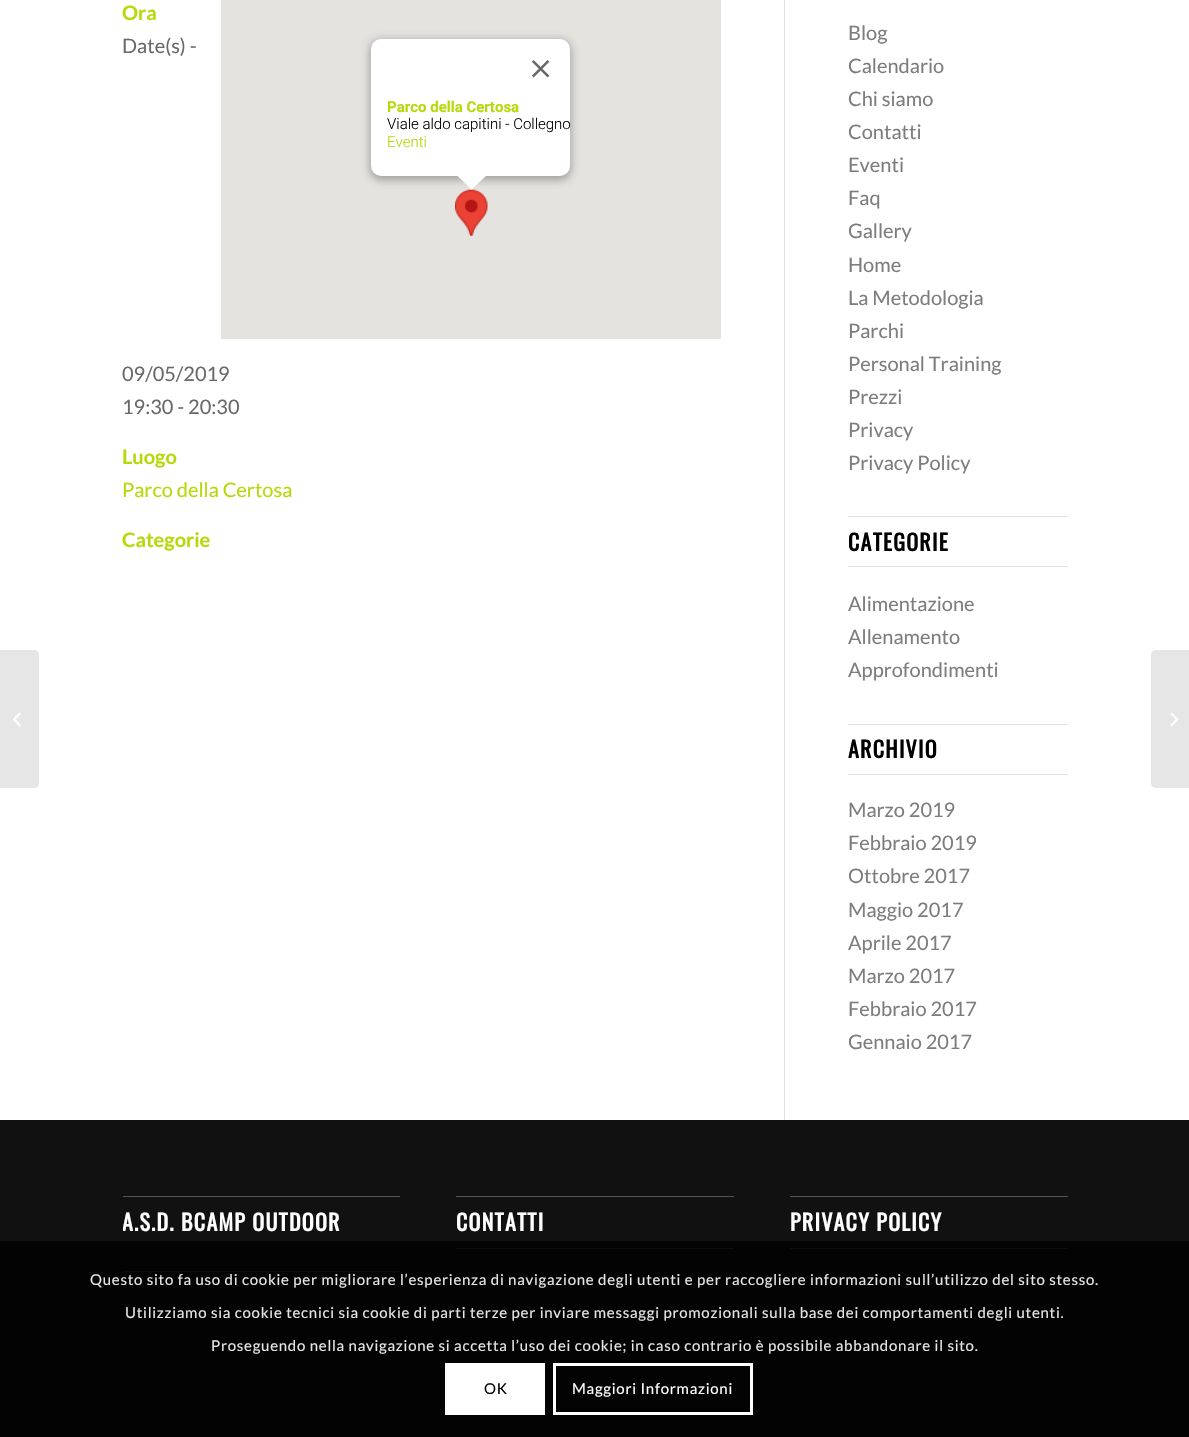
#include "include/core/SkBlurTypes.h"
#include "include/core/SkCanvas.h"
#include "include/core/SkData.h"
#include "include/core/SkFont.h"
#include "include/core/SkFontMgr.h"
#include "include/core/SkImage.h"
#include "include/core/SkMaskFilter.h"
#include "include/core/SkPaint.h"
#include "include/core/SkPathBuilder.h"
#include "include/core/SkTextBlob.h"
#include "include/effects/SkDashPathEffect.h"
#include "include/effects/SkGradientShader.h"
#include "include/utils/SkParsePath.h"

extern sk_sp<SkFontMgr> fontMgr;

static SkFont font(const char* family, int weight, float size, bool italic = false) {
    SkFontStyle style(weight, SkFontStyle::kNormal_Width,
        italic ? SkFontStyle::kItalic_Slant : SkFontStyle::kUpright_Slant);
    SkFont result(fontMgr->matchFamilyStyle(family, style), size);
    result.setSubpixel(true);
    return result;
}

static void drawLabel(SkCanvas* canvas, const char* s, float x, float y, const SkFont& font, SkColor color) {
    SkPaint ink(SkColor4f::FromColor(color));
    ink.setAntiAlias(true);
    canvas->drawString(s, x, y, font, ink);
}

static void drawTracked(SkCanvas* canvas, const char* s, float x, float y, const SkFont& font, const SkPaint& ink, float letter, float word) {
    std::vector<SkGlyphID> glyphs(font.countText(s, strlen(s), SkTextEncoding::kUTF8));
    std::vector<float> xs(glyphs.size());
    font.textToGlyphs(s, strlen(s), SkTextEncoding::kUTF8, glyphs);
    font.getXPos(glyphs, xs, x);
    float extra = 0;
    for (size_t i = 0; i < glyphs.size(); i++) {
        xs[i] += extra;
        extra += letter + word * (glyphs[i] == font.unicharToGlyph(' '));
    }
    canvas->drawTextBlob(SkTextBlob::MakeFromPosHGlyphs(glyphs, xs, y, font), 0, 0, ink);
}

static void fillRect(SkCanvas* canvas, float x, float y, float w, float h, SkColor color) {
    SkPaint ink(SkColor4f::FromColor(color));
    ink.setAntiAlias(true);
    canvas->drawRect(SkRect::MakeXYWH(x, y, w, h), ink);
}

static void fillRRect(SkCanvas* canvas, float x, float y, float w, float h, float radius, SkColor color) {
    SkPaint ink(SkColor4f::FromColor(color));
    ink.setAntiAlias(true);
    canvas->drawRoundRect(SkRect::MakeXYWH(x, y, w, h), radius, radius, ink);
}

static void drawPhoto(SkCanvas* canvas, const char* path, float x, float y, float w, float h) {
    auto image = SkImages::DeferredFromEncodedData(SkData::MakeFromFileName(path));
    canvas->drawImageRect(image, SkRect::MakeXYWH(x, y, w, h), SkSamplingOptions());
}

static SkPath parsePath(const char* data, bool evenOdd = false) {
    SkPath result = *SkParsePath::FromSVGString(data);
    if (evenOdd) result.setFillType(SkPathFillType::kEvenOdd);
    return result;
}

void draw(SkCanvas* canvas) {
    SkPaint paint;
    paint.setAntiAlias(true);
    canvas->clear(0xFFFFFFFF);
    paint.setColor(0xFFE6E6E6);
    canvas->drawPath(parsePath("M0 650H34C37 650 39 652 39 655V783C39 786 37 788 34 788H0Z"), paint);
    drawPhoto(canvas, "assets/img1.png", 13, 712, 8, 15);
    SkFont font1 = font("Lato", 700, 20);
    drawLabel(canvas, "Ora", 122, 20, font1, 0xFFB6D909);
    SkFont font2 = font("Lato", 400, 20);
    drawLabel(canvas, "Date(s) -", 122, 53, font2, 0xFF696969);
    drawLabel(canvas, "09/05/2019", 122, 381, font2, 0xFF696969);
    drawLabel(canvas, "19:30 - 20:30", 122, 414, font2, 0xFF696969);
    fillRect(canvas, 221, 0, 500, 339, 0xFFE5E3DF);
    drawPhoto(canvas, "assets/img3.png", 455, 189, 33, 47);
    paint.setColor(0x4D000000);
    paint.setMaskFilter(SkMaskFilter::MakeBlur(kNormal_SkBlurStyle, 4.5f));
    canvas->drawRoundRect(SkRect::MakeXYWH(370, 40, 201, 140), 11, 11, paint);
    paint.setMaskFilter(nullptr);
    fillRRect(canvas, 371, 39, 199, 137, 10, 0xFFFFFFFF);
    drawPhoto(canvas, "assets/img2.png", 532, 60, 18, 18);
    SkFont font3 = font("Roboto", 700, 15);
    drawLabel(canvas, "Parco della Certosa", 387, 112, font3, 0xFFB6D909);
    canvas->save();
    canvas->clipPath(parsePath("M381 39H560C565.5 39 570 43.5 570 49V166C570 171.5 565.5 176 560 176H381C375.5 176 371 171.5 371 166V49C371 43.5 375.5 39 381 39Z"), true);
    SkFont font4 = font("Roboto", 300, 15);
    drawLabel(canvas, "Viale aldo capitini - Collegno", 387, 129, font4, 0xFF000000);
    canvas->restore();
    drawLabel(canvas, "Eventi", 387, 147, font4, 0xFFB6D909);
    paint.setColor(0xFFFFFFFF);
    canvas->drawPath(parsePath("M487 175H456.5L471.5 189.5Z"), paint);
    drawLabel(canvas, "Luogo", 122, 464, font1, 0xFFB6D909);
    drawLabel(canvas, "Parco della Certosa", 122, 497, font2, 0xFFB6D909);
    drawLabel(canvas, "Categorie", 122, 547, font1, 0xFFB6D909);
    fillRect(canvas, 784, 0, 1, 1120, 0xFFE1E1E1);
    drawLabel(canvas, "Blog", 848, 40, font2, 0xFF7D7D7D);
    drawLabel(canvas, "Calendario", 848, 73, font2, 0xFF7D7D7D);
    drawLabel(canvas, "Chi siamo", 848, 106, font2, 0xFF7D7D7D);
    drawLabel(canvas, "Contatti", 848, 139, font2, 0xFF7D7D7D);
    drawLabel(canvas, "Eventi", 848, 172, font2, 0xFF7D7D7D);
    drawLabel(canvas, "Faq", 848, 205, font2, 0xFF7D7D7D);
    drawLabel(canvas, "Gallery", 848, 238, font2, 0xFF7D7D7D);
    drawLabel(canvas, "Home", 848, 272, font2, 0xFF7D7D7D);
    drawLabel(canvas, "La Metodologia", 848, 305, font2, 0xFF7D7D7D);
    drawLabel(canvas, "Parchi", 848, 338, font2, 0xFF7D7D7D);
    drawLabel(canvas, "Personal Training", 848, 371, font2, 0xFF7D7D7D);
    drawLabel(canvas, "Prezzi", 848, 404, font2, 0xFF7D7D7D);
    drawLabel(canvas, "Privacy", 848, 437, font2, 0xFF7D7D7D);
    drawLabel(canvas, "Privacy Policy", 848, 470, font2, 0xFF7D7D7D);
    fillRect(canvas, 848, 516, 220, 1, 0xFFE1E1E1);
    fillRect(canvas, 848, 566, 220, 1, 0xFFE1E1E1);
    SkFont font5 = font("Oswald", 700, 22);
    paint.setColor(0xFF000000);
    drawTracked(canvas, "CATEGORIE", 848, 551, font5, paint, 1.25f, 0);
    drawLabel(canvas, "Alimentazione", 848, 611, font2, 0xFF7D7D7D);
    drawLabel(canvas, "Allenamento", 848, 644, font2, 0xFF7D7D7D);
    drawLabel(canvas, "Approfondimenti", 848, 677, font2, 0xFF7D7D7D);
    fillRect(canvas, 848, 724, 220, 1, 0xFFE1E1E1);
    fillRect(canvas, 848, 774, 220, 1, 0xFFE1E1E1);
    drawTracked(canvas, "ARCHIVIO", 848, 758, font5, paint, 1.25f, 0);
    drawLabel(canvas, "Marzo 2019", 848, 817, font2, 0xFF7D7D7D);
    drawLabel(canvas, "Febbraio 2019", 848, 850, font2, 0xFF7D7D7D);
    drawLabel(canvas, "Ottobre 2017", 848, 883, font2, 0xFF7D7D7D);
    drawLabel(canvas, "Maggio 2017", 848, 917, font2, 0xFF7D7D7D);
    drawLabel(canvas, "Aprile 2017", 848, 950, font2, 0xFF7D7D7D);
    drawLabel(canvas, "Marzo 2017", 848, 983, font2, 0xFF7D7D7D);
    drawLabel(canvas, "Febbraio 2017", 848, 1016, font2, 0xFF7D7D7D);
    drawLabel(canvas, "Gennaio 2017", 848, 1049, font2, 0xFF7D7D7D);
    fillRect(canvas, 0, 1120, 1189, 317, 0xFF111111);
    fillRect(canvas, 123, 1196, 277, 1, 0xFF555555);
    fillRect(canvas, 123, 1271, 277, 1, 0xFF555555);
    canvas->save();
    canvas->clipRect(SkRect::MakeXYWH(123, 1178, 277, 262));
    paint.setColor(0xFFFFFFFF);
    drawTracked(canvas, "A.S.D. BCAMP OUTDOOR", 122, 1231, font5, paint, 1.25f, 0);
    canvas->restore();
    fillRect(canvas, 456, 1196, 278, 1, 0xFF555555);
    fillRect(canvas, 456, 1248, 278, 1, 0xFF555555);
    drawTracked(canvas, "CONTATTI", 456, 1231, font5, paint, 1.25f, 0);
    fillRect(canvas, 790, 1196, 278, 1, 0xFF555555);
    fillRect(canvas, 790, 1248, 278, 1, 0xFF555555);
    drawTracked(canvas, "PRIVACY POLICY", 790, 1231, font5, paint, 1.25f, 0);
    paint.setColor(0xFFE6E6E6);
    canvas->drawPath(parsePath("M1156 650H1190V788H1156C1153 788 1151 786 1151 783V655C1151 652 1153 650 1156 650Z"), paint);
    drawPhoto(canvas, "assets/img4.png", 1170, 712, 9, 15);
    fillRect(canvas, 0, 1241, 1189, 196, 0xD9000000);
    SkFont font6 = font("Lato", 400, 15);
    drawTracked(canvas, "Questo sito fa uso di cookie per migliorare l’esperienza di navigazione degli utenti e per raccogliere informazioni sull’utilizzo del sito stesso.", 90, 1285, font6, paint, 0.75f, 0);
    drawTracked(canvas, "Utilizziamo sia cookie tecnici sia cookie di parti terze per inviare messaggi promozionali sulla base dei comportamenti degli utenti.", 125, 1318, font6, paint, 0.75f, 0);
    drawTracked(canvas, "Proseguendo nella navigazione si accetta l’uso dei cookie; in caso contrario è possibile abbandonare il sito.", 211, 1351, font6, paint, 0.75f, 0);
    fillRect(canvas, 445, 1363, 100, 52, 0xFFFFFFFF);
    paint.setColor(0xFF000000);
    drawTracked(canvas, "OK", 484, 1394, font6, paint, 0.75f, 0);
    paint.setStroke(true);
    paint.setStrokeWidth(3);
    paint.setColor(0xFFFFFFFF);
    canvas->drawRect(SkRect::MakeXYWH(554.5f, 1364.5f, 197, 49), paint);
    paint.setStroke(false);
    drawTracked(canvas, "Maggiori Informazioni", 572, 1394, font6, paint, 0.75f, 0);
}
